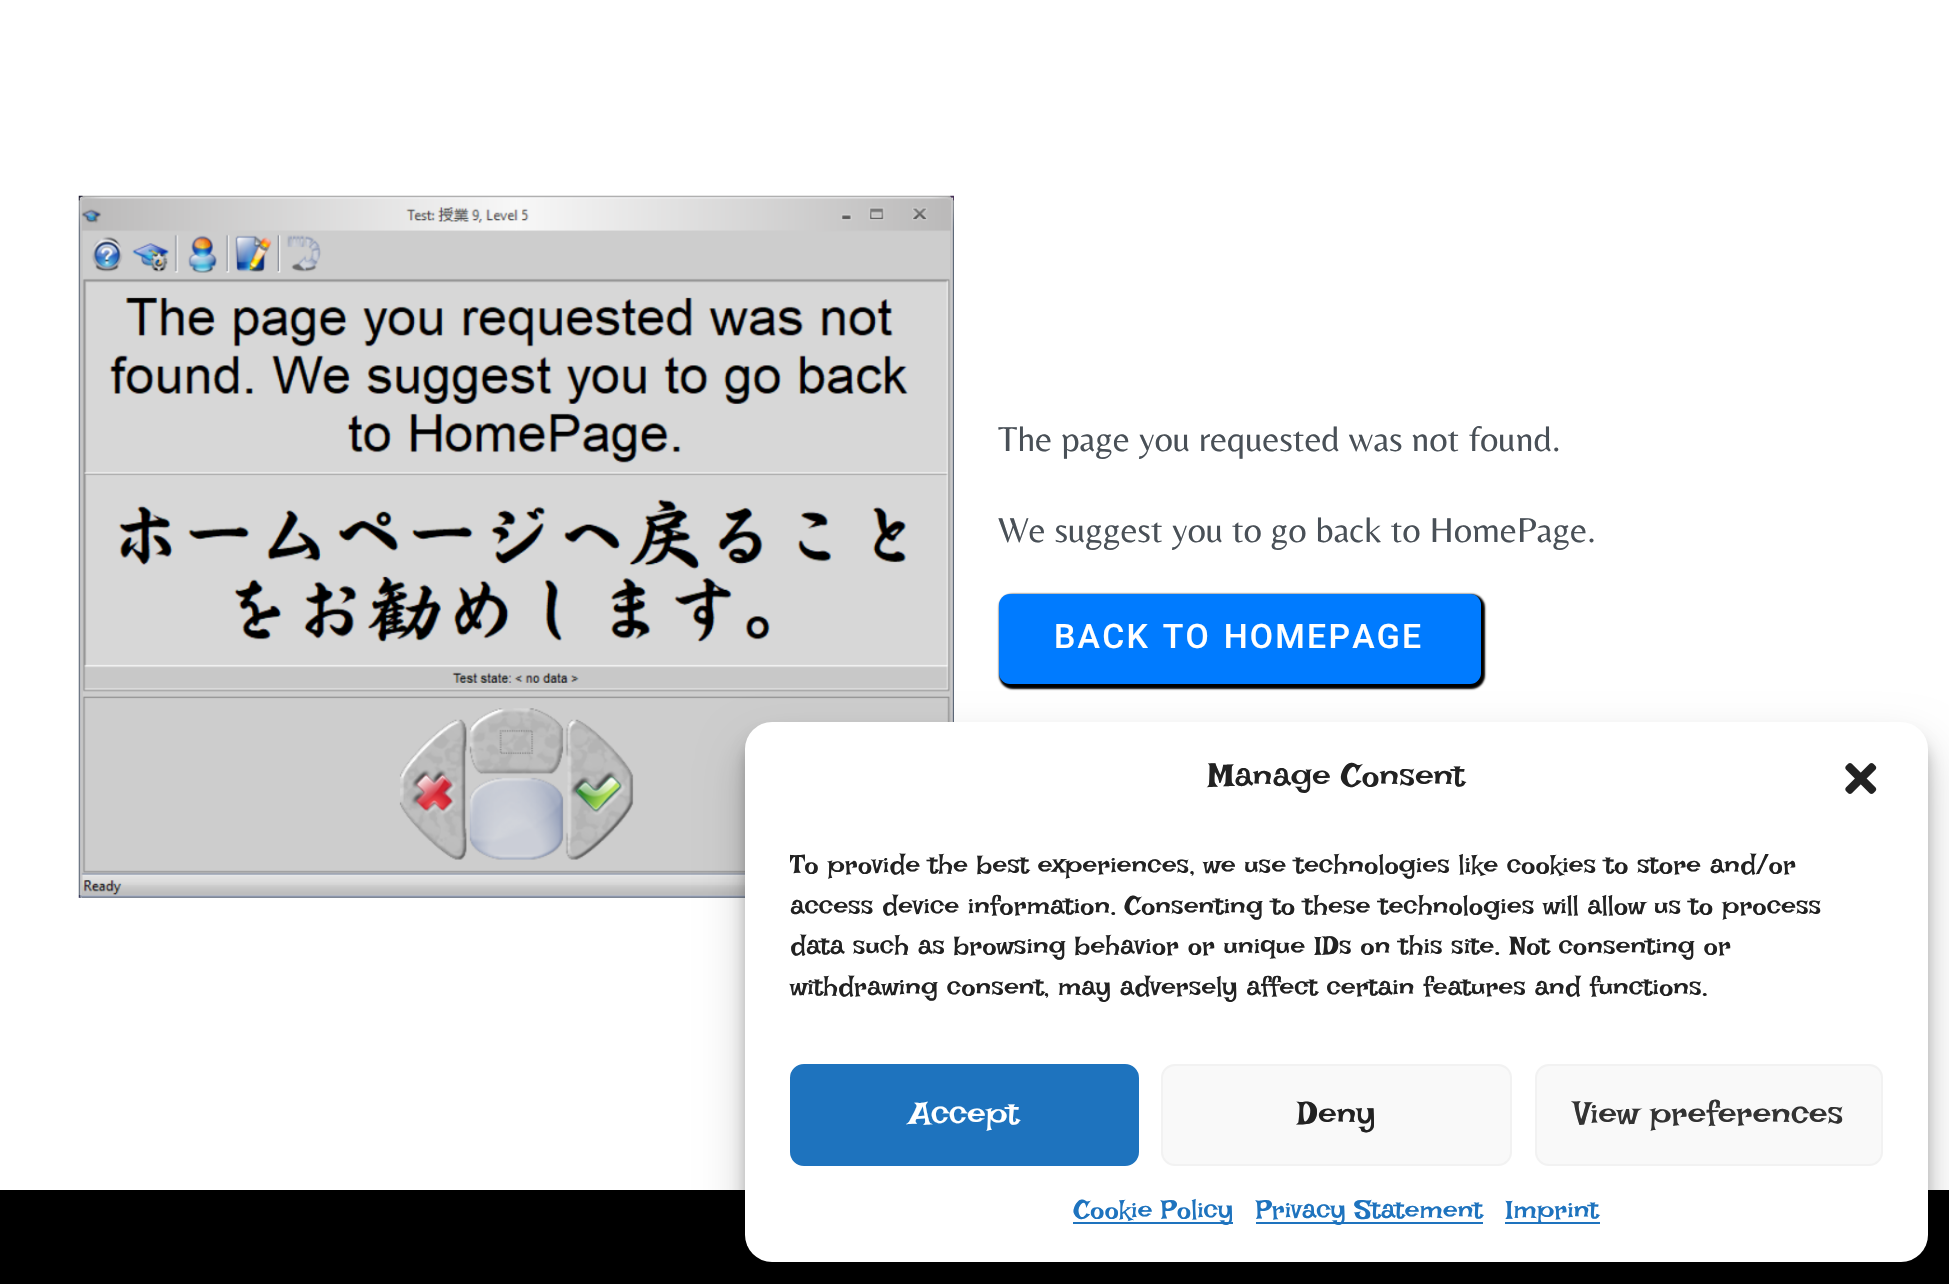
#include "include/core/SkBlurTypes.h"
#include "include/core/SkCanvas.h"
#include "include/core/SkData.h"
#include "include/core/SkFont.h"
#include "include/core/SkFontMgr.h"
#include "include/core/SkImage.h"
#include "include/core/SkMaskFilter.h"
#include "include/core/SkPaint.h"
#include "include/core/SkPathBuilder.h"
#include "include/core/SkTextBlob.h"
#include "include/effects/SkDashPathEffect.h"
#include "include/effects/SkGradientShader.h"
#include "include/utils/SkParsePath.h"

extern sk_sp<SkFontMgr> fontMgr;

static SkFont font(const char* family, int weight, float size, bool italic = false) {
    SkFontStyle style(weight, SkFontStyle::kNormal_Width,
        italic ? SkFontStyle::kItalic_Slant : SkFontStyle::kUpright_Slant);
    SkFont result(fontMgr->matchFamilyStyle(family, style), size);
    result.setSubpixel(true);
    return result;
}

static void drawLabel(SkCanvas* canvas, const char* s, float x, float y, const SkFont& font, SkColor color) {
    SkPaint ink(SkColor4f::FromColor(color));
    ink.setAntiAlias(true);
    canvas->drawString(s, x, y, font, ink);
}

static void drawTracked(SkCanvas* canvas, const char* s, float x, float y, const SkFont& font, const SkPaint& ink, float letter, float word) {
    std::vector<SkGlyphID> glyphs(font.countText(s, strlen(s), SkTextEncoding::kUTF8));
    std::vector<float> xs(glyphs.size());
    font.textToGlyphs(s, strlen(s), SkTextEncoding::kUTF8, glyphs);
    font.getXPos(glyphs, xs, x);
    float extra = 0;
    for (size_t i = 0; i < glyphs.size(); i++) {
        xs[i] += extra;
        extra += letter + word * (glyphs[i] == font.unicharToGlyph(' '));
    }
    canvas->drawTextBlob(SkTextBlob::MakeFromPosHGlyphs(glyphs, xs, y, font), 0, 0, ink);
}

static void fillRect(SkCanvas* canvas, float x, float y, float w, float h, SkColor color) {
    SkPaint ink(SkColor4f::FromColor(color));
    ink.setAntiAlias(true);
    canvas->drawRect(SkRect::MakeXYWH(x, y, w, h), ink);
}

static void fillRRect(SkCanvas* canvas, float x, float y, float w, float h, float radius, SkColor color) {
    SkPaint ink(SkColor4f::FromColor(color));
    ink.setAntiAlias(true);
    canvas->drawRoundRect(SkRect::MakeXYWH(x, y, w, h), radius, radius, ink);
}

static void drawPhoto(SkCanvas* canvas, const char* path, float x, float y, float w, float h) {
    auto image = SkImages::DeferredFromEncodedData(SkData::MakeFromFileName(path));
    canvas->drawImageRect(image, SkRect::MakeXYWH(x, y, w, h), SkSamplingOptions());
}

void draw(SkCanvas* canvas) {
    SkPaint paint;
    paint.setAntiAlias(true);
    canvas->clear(0xFFFFFFFF);
    drawPhoto(canvas, "assets/img1.png", 78, 195, 876, 703);
    SkFont font1 = font("Belleza", 400, 36);
    drawLabel(canvas, "The page you requested was not found.", 998, 451, font1, 0xFF495057);
    drawLabel(canvas, "We suggest you to go back to HomePage.", 998, 542, font1, 0xFF495057);
    paint.setColor(0xFF000000);
    paint.setMaskFilter(SkMaskFilter::MakeBlur(kNormal_SkBlurStyle, 1));
    canvas->drawRoundRect(SkRect::MakeXYWH(999, 594, 486, 95), 14, 14, paint);
    paint.setMaskFilter(nullptr);
    fillRRect(canvas, 999, 594, 482, 90, 11, 0xFF007BFF);
    SkFont font2 = font("Roboto", 500, 33.75f);
    paint.setColor(0xFFFFFFFF);
    drawTracked(canvas, "BACK TO HOMEPAGE", 1054, 648, font2, paint, 2.25f, 2);
    fillRect(canvas, 0, 1190, 1949, 94, 0xFF000000);
    paint.setColor(0x3B000000);
    paint.setMaskFilter(SkMaskFilter::MakeBlur(kNormal_SkBlurStyle, 7));
    canvas->drawRoundRect(SkRect::MakeXYWH(745, 736, 1183, 540), 27, 27, paint);
    paint.setMaskFilter(nullptr);
    paint.setColor(0x30000000);
    paint.setMaskFilter(SkMaskFilter::MakeBlur(kNormal_SkBlurStyle, 22.5f));
    canvas->drawRoundRect(SkRect::MakeXYWH(745, 745, 1183, 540), 27, 27, paint);
    paint.setMaskFilter(nullptr);
    fillRRect(canvas, 745, 722, 1183, 540, 27, 0xFFFFFFFF);
    SkFont font3 = font("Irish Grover", 400, 33.75f);
    drawLabel(canvas, "Manage Consent", 1208, 787, font3, 0xFF222222);
    drawPhoto(canvas, "assets/img2.png", 1845, 763, 32, 31);
    canvas->save();
    canvas->clipRect(SkRect::MakeXYWH(790, 846, 1093, 173));
    SkFont font4 = font("Irish Grover", 400, 27);
    drawLabel(canvas, "To provide the best experiences, we use technologies like cookies to store and/or", 790, 874, font4, 0xFF222222);
    canvas->restore();
    drawLabel(canvas, "access device information. Consenting to these technologies will allow us to process", 790, 915, font4, 0xFF222222);
    drawLabel(canvas, "data such as browsing behavior or unique IDs on this site. Not consenting or", 790, 955, font4, 0xFF222222);
    drawLabel(canvas, "withdrawing consent, may adversely affect certain features and functions.", 790, 996, font4, 0xFF222222);
    paint.setColor(0xFF1E73BE);
    canvas->drawRoundRect(SkRect::MakeXYWH(791, 1065, 347, 100), 13, 13, paint);
    paint.setStroke(true);
    paint.setStrokeWidth(2);
    canvas->drawRoundRect(SkRect::MakeXYWH(791, 1065, 347, 100), 13, 13, paint);
    drawLabel(canvas, "Accept", 909, 1125, font3, 0xFFFFFFFF);
    paint.setStroke(false);
    paint.setColor(0xFFF9F9F9);
    canvas->drawRoundRect(SkRect::MakeXYWH(1162, 1065, 349, 100), 13, 13, paint);
    paint.setStroke(true);
    paint.setColor(0xFFF2F2F2);
    canvas->drawRoundRect(SkRect::MakeXYWH(1162, 1065, 349, 100), 13, 13, paint);
    drawLabel(canvas, "Deny", 1297, 1125, font3, 0xFF222222);
    paint.setStroke(false);
    paint.setColor(0xFFF9F9F9);
    canvas->drawRoundRect(SkRect::MakeXYWH(1536, 1065, 346, 100), 13, 13, paint);
    paint.setStroke(true);
    paint.setColor(0xFFF2F2F2);
    canvas->drawRoundRect(SkRect::MakeXYWH(1536, 1065, 346, 100), 13, 13, paint);
    drawLabel(canvas, "View preferences", 1574, 1125, font3, 0xFF333333);
    fillRect(canvas, 1073, 1222, 160, 2, 0xFF1E73BE);
    drawLabel(canvas, "Cookie Policy", 1074, 1219, font4, 0xFF1E73BE);
    fillRect(canvas, 1256, 1222, 227, 2, 0xFF1E73BE);
    drawLabel(canvas, "Privacy Statement", 1256, 1219, font4, 0xFF1E73BE);
    fillRect(canvas, 1505, 1222, 95, 2, 0xFF1E73BE);
    drawLabel(canvas, "Imprint", 1505, 1219, font4, 0xFF1E73BE);
}
